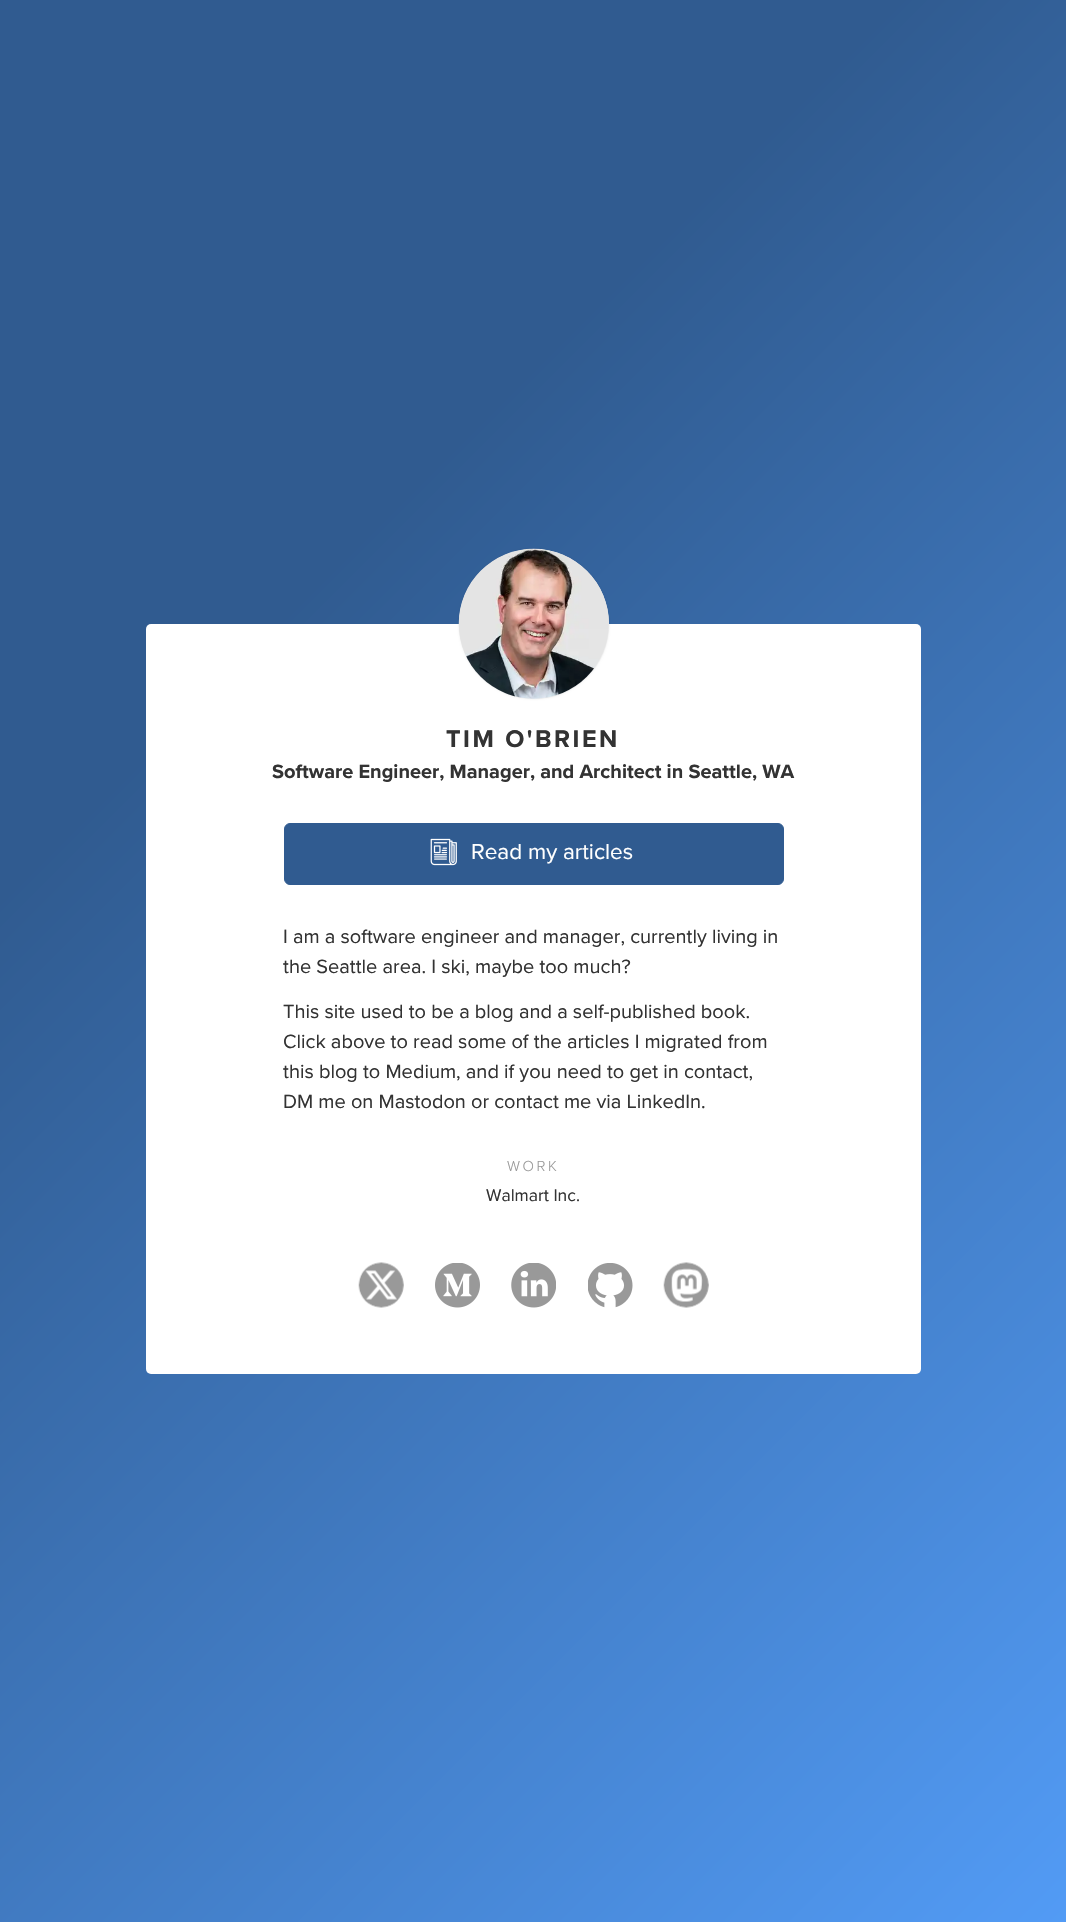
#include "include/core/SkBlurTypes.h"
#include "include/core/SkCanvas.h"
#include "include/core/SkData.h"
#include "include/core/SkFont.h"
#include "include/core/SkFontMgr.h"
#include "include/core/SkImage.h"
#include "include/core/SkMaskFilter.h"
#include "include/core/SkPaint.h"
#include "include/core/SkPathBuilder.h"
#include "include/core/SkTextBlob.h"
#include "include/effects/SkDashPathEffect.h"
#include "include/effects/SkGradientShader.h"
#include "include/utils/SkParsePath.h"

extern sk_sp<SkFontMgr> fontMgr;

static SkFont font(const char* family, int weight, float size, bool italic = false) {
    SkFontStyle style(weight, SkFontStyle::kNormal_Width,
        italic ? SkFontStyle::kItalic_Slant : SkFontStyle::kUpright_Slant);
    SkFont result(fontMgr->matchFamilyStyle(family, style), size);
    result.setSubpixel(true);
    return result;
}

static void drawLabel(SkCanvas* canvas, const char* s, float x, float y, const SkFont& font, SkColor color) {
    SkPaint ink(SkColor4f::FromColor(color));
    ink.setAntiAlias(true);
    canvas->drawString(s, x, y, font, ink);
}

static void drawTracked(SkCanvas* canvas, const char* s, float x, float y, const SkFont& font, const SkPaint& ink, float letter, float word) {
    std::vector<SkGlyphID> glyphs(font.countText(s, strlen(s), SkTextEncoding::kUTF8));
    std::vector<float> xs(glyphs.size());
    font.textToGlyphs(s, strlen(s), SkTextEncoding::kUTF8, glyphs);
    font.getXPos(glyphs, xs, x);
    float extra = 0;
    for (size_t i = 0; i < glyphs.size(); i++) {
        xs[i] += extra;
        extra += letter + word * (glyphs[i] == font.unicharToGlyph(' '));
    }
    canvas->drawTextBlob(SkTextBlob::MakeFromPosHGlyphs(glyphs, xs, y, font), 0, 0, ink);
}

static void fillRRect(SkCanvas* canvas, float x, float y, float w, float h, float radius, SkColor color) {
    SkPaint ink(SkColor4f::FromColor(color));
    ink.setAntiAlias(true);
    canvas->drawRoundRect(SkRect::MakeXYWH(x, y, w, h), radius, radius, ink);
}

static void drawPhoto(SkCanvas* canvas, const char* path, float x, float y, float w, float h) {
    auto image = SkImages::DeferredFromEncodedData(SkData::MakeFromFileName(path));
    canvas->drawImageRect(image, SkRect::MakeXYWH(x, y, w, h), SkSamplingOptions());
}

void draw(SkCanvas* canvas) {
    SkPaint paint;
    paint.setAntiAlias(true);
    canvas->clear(0xFFFFFFFF);
    {
        const SkColor colors[] = {0xFF305B90, 0xFF305B90, 0xFF529BF5};
        const float stops[] = {0, 0.3f, 1};
        const SkPoint ends[] = {{-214, 214}, {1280, 1708}};
        paint.setShader(SkGradientShader::MakeLinear(ends, colors, stops, 3, SkTileMode::kClamp));
        paint.setAlpha(255);
    }
    canvas->drawRect(SkRect::MakeXYWH(0, 0, 1066, 1922), paint);
    fillRRect(canvas, 146, 624, 775, 750, 5, 0xFFFFFFFF);
    paint.setShader(nullptr);
    paint.setColor(0x1A000000);
    paint.setMaskFilter(SkMaskFilter::MakeBlur(kNormal_SkBlurStyle, 1));
    canvas->drawRoundRect(SkRect::MakeXYWH(459, 549, 150, 150), 75, 75, paint);
    paint.setMaskFilter(nullptr);
    paint.setColor(0xFFEEEEEE);
    canvas->drawCircle(534, 624, 75, paint);
    drawPhoto(canvas, "assets/img1.png", 458, 548, 151, 151);
    SkFont font1 = font("Proxima Nova", 700, 25);
    paint.setColor(0xFF333333);
    drawTracked(canvas, "TIM O'BRIEN", 446, 747, font1, paint, 2.5f, 0);
    SkFont font2 = font("Proxima Nova", 700, 20);
    drawLabel(canvas, "Software Engineer, Manager, and Architect in Seattle, WA", 272, 778, font2, 0xFF333333);
    paint.setColor(0xFF305B90);
    canvas->drawRoundRect(SkRect::MakeXYWH(284.5f, 823.5f, 499, 61), 5.5f, 5.5f, paint);
    paint.setStroke(true);
    paint.setStrokeWidth(1);
    canvas->drawRoundRect(SkRect::MakeXYWH(284.5f, 823.5f, 499, 61), 5.5f, 5.5f, paint);
    drawPhoto(canvas, "assets/img2.png", 430, 838, 27, 28);
    SkFont font3 = font("Proxima Nova", 400, 22.5f);
    drawLabel(canvas, "Read my articles", 471, 859, font3, 0xFFFFFFFF);
    SkFont font4 = font("Proxima Nova", 400, 20);
    drawLabel(canvas, "I am a software engineer and manager, currently living in", 283, 943, font4, 0xFF333333);
    drawLabel(canvas, "the Seattle area. I ski, maybe too much?", 283, 973, font4, 0xFF333333);
    drawLabel(canvas, "This site used to be a blog and a self-published book.", 283, 1018, font4, 0xFF333333);
    drawLabel(canvas, "Click above to read some of the articles I migrated from", 283, 1048, font4, 0xFF333333);
    drawLabel(canvas, "this blog to Medium, and if you need to get in contact,", 283, 1078, font4, 0xFF333333);
    drawLabel(canvas, "DM me on Mastodon or contact me via LinkedIn.", 283, 1108, font4, 0xFF333333);
    SkFont font5 = font("Proxima Nova", 300, 15);
    paint.setStroke(false);
    paint.setColor(0xFF999999);
    drawTracked(canvas, "WORK", 507, 1171, font5, paint, 2.5f, 0);
    SkFont font6 = font("Proxima Nova", 400, 17.5f);
    drawLabel(canvas, "Walmart Inc.", 486, 1201, font6, 0xFF333333);
    drawPhoto(canvas, "assets/img3.png", 358, 1262, 46, 46);
    drawPhoto(canvas, "assets/img4.png", 435, 1263, 45, 45);
    drawPhoto(canvas, "assets/img5.png", 511, 1263, 45, 45);
    drawPhoto(canvas, "assets/img6.png", 588, 1263, 45, 45);
    drawPhoto(canvas, "assets/img7.png", 663, 1262, 46, 46);
}
